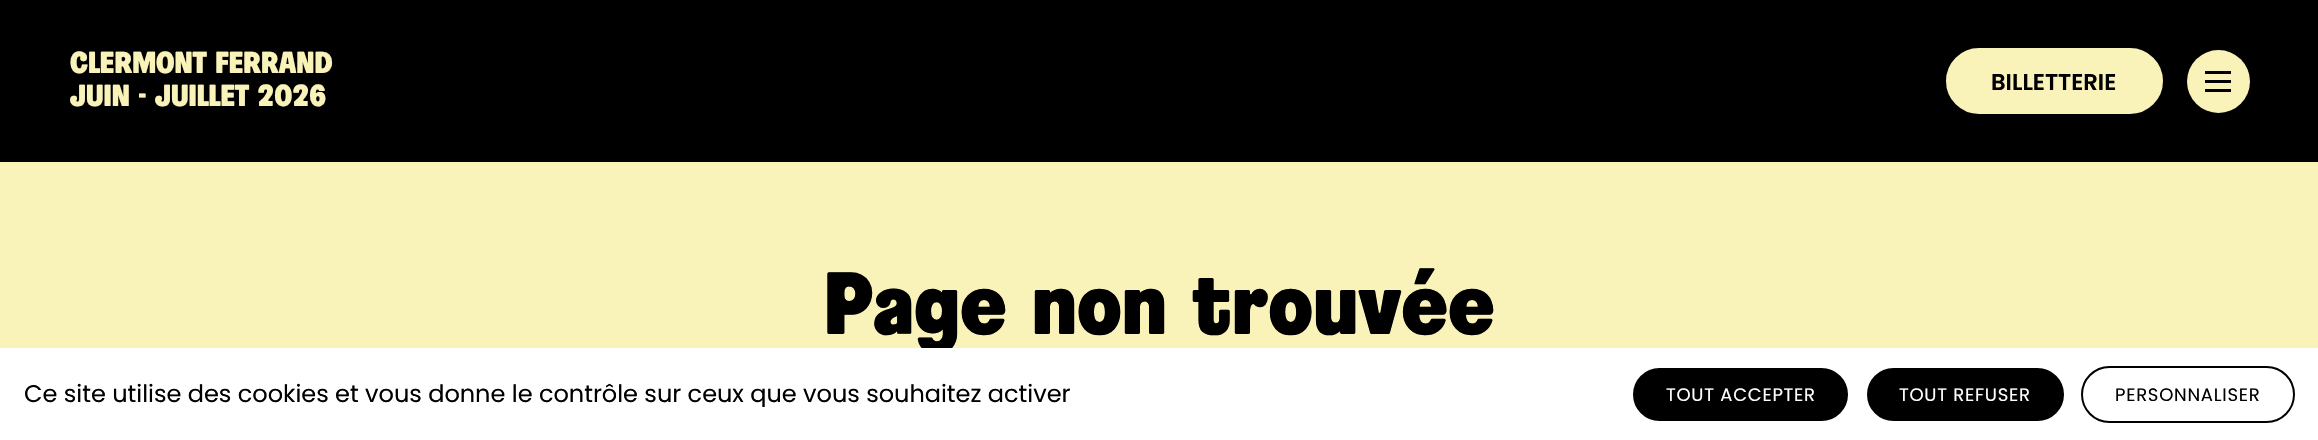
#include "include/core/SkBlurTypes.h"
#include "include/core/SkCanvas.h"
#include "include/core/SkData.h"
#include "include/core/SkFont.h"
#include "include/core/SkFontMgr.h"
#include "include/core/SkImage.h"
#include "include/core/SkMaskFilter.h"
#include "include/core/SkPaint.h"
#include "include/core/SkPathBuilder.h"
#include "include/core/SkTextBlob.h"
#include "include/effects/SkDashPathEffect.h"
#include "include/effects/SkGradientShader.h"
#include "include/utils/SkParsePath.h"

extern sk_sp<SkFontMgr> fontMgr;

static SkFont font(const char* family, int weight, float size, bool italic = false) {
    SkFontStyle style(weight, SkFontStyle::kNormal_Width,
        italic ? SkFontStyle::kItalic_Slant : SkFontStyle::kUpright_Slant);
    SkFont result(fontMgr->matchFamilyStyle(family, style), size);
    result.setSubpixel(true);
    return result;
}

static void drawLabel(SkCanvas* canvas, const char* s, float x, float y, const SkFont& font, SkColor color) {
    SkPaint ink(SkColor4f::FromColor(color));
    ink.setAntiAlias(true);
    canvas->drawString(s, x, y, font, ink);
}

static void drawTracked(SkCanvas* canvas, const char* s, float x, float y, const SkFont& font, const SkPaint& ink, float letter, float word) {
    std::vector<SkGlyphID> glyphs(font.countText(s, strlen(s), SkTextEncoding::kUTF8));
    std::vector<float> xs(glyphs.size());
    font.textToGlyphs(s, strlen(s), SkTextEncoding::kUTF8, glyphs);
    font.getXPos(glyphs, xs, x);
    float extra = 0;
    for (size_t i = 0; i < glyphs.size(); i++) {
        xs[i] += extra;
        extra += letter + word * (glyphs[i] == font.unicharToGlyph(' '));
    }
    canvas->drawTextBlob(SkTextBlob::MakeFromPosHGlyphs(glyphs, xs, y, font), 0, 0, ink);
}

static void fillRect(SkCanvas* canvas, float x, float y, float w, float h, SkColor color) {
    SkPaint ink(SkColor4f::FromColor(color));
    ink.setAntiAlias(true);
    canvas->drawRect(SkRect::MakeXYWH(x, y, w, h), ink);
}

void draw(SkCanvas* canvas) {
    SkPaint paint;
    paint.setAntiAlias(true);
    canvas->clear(0xFFF9F2B9);
    fillRect(canvas, 0, 0, 2318, 162, 0xFF000000);
    SkFont font1 = font("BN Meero", 400, 33);
    drawLabel(canvas, "CLERMONT FERRAND", 70, 73, font1, 0xFFF9F2B9);
    drawLabel(canvas, "JUIN - JUILLET 2026", 70, 106, font1, 0xFFF9F2B9);
    paint.setColor(0xFFF9F2B9);
    canvas->drawRoundRect(SkRect::MakeXYWH(1947.5f, 49.5f, 214, 63), 31.5f, 31.5f, paint);
    paint.setStroke(true);
    paint.setStrokeWidth(3);
    canvas->drawRoundRect(SkRect::MakeXYWH(1947.5f, 49.5f, 214, 63), 31.5f, 31.5f, paint);
    SkFont font2 = font("Poppins", 600, 22.75f);
    drawLabel(canvas, "BILLETTERIE", 1991, 90, font2, 0xFF000000);
    paint.setStroke(false);
    canvas->drawCircle(2218.5f, 81.5f, 31.5f, paint);
    fillRect(canvas, 2205, 80, 26, 3, 0xFF000000);
    fillRect(canvas, 2205, 71, 26, 3, 0xFF000000);
    fillRect(canvas, 2205, 89, 26, 3, 0xFF000000);
    SkFont font3 = font("BN Meero", 400, 96);
    drawLabel(canvas, "Page non trouvée", 824, 334, font3, 0xFF000000);
    fillRect(canvas, 0, 348, 2318, 92, 0xFFFFFFFF);
    canvas->save();
    canvas->clipRect(SkRect::MakeXYWH(24, 383, 1607, 24));
    SkFont font4 = font("Poppins", 400, 24);
    drawLabel(canvas, "Ce site utilise des cookies et vous donne le contrôle sur ceux que vous souhaitez activer", 24, 402, font4, 0xFF000000);
    canvas->restore();
    paint.setColor(0xFF000000);
    canvas->drawRoundRect(SkRect::MakeXYWH(1632, 367, 217, 55), 27.5f, 27.5f, paint);
    paint.setStroke(true);
    paint.setStrokeWidth(2);
    paint.setColor(0xFFFFFFFF);
    canvas->drawRoundRect(SkRect::MakeXYWH(1632, 367, 217, 55), 27.5f, 27.5f, paint);
    SkFont font5 = font("Poppins", 400, 18);
    paint.setStroke(false);
    drawTracked(canvas, "TOUT ACCEPTER", 1666, 401, font5, paint, 0.75f, 0);
    paint.setColor(0xFF000000);
    canvas->drawRoundRect(SkRect::MakeXYWH(1866, 367, 199, 55), 27.5f, 27.5f, paint);
    paint.setStroke(true);
    paint.setColor(0xFFFFFFFF);
    canvas->drawRoundRect(SkRect::MakeXYWH(1866, 367, 199, 55), 27.5f, 27.5f, paint);
    paint.setStroke(false);
    drawTracked(canvas, "TOUT REFUSER", 1899, 401, font5, paint, 0.75f, 0);
    paint.setStroke(true);
    paint.setColor(0xFF000000);
    canvas->drawRoundRect(SkRect::MakeXYWH(2082, 367, 212, 55), 27.5f, 27.5f, paint);
    paint.setStroke(false);
    drawTracked(canvas, "PERSONNALISER", 2115, 401, font5, paint, 0.75f, 0);
}
